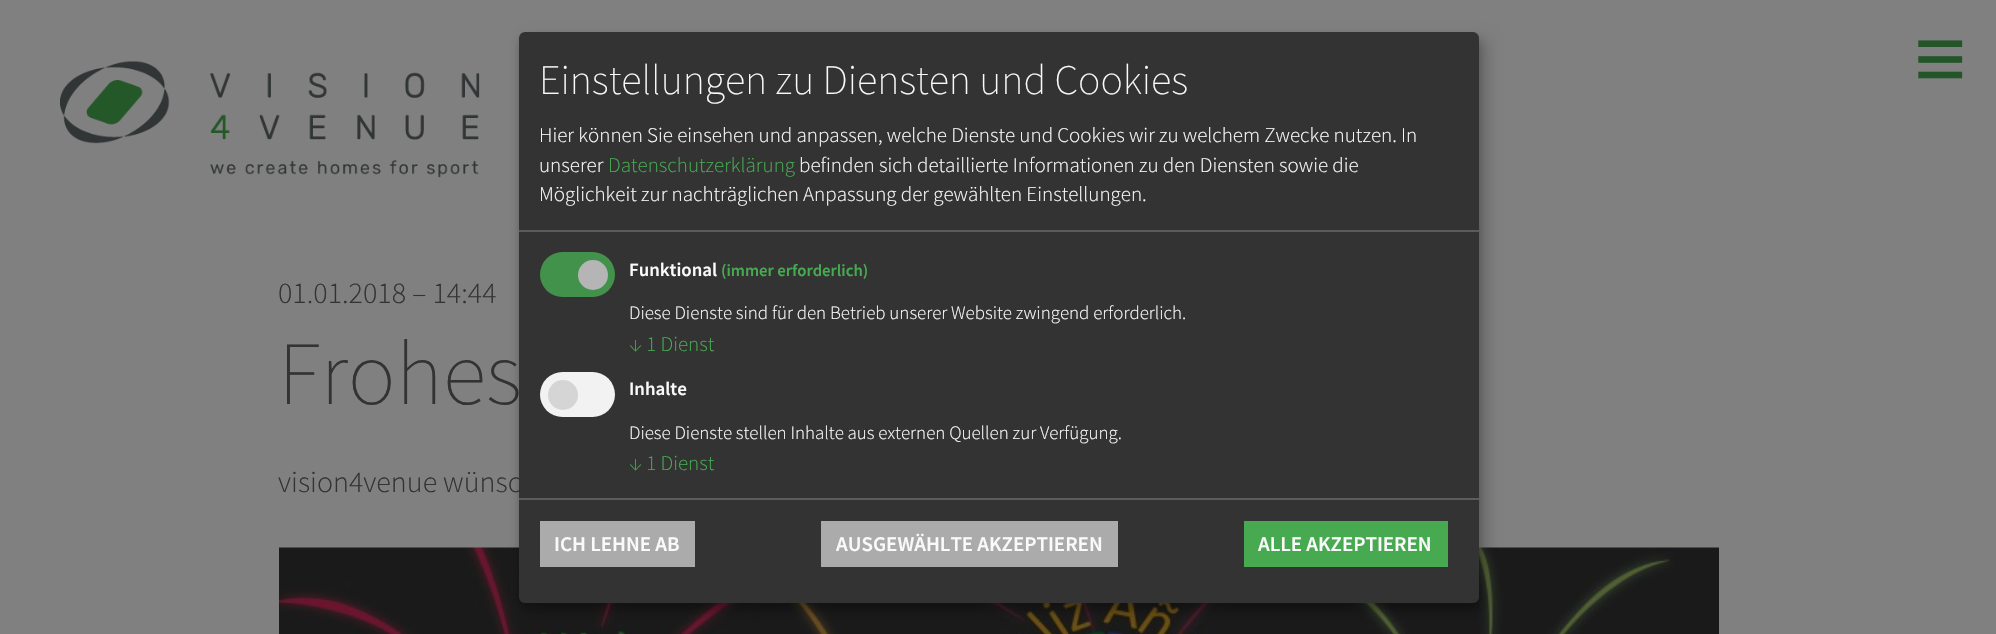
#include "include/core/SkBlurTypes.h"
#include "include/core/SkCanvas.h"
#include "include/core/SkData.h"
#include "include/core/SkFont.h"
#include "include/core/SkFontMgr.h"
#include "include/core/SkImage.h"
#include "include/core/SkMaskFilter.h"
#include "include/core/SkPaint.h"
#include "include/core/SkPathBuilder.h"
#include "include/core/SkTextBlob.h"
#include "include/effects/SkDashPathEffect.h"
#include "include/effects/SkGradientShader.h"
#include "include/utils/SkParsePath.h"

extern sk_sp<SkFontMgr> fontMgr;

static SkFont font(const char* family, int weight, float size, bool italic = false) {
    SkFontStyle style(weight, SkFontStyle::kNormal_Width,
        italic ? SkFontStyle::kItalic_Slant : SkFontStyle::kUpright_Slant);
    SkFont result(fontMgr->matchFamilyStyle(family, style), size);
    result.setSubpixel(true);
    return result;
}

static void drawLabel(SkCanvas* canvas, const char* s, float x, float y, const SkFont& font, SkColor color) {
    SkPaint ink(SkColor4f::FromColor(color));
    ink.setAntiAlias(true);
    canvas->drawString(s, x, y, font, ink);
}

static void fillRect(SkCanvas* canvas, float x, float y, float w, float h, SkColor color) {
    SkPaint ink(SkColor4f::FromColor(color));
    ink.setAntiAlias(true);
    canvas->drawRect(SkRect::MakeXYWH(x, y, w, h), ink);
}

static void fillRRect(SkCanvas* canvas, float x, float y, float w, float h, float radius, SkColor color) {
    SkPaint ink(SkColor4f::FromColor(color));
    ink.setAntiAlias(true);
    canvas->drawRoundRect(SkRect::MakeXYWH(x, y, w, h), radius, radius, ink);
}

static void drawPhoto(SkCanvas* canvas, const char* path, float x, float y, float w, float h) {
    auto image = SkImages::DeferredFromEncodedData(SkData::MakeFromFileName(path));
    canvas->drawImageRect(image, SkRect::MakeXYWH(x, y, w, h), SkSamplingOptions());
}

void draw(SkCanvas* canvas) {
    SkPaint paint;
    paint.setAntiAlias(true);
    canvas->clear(0xFF808080);
    SkFont font1 = font("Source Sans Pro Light", 300, 30);
    drawLabel(canvas, "01.01.2018 – 14:44", 278, 303, font1, 0xFF333333);
    SkFont font2 = font("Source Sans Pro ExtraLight", 200, 90);
    drawLabel(canvas, "Frohes", 278, 404, font2, 0xFF333333);
    drawLabel(canvas, "vision4venue wünsc", 278, 492, font1, 0xFF333333);
    drawPhoto(canvas, "assets/img1.png", 279, 547, 1440, 87);
    paint.setColor(0x30000000);
    paint.setMaskFilter(SkMaskFilter::MakeBlur(kNormal_SkBlurStyle, 7.5f));
    canvas->drawRoundRect(SkRect::MakeXYWH(527, 39, 960, 572), 6, 6, paint);
    paint.setMaskFilter(nullptr);
    paint.setColor(0x33000000);
    paint.setMaskFilter(SkMaskFilter::MakeBlur(kNormal_SkBlurStyle, 4.5f));
    canvas->drawRoundRect(SkRect::MakeXYWH(519, 38, 960, 571), 6, 6, paint);
    paint.setMaskFilter(nullptr);
    fillRRect(canvas, 519, 32, 960, 571, 6, 0xFF333333);
    fillRect(canvas, 519, 230, 960, 2, 0xFF5C5C5C);
    SkFont font3 = font("Source Sans Pro ExtraLight", 200, 42);
    drawLabel(canvas, "Einstellungen zu Diensten und Cookies", 539, 94, font3, 0xFFFAFAFA);
    SkFont font4 = font("Source Sans Pro Light", 300, 21);
    drawLabel(canvas, "Hier können Sie einsehen und anpassen, welche Dienste und Cookies wir zu welchem Zwecke nutzen. In", 539, 142, font4, 0xFFFAFAFA);
    drawLabel(canvas, "unserer", 539, 172, font4, 0xFFFAFAFA);
    drawLabel(canvas, "Datenschutzerklärung", 608, 172, font4, 0xFF47AA51);
    drawLabel(canvas, "befinden sich detaillierte Informationen zu den Diensten sowie die", 799, 172, font4, 0xFFFAFAFA);
    drawLabel(canvas, "Möglichkeit zur nachträglichen Anpassung der gewählten Einstellungen.", 539, 201, font4, 0xFFFAFAFA);
    fillRRect(canvas, 540, 252, 75, 45, 22.5f, 0xFF43924B);
    paint.setColor(0xFFB5B5B5);
    canvas->drawCircle(593, 275, 15, paint);
    SkFont font5 = font("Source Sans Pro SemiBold", 600, 18.9f);
    drawLabel(canvas, "Funktional", 629, 276, font5, 0xFFFAFAFA);
    SkFont font6 = font("Source Sans Pro SemiBold", 600, 16.75f);
    drawLabel(canvas, "(immer erforderlich)", 721, 276, font6, 0xFF47AA51);
    SkFont font7 = font("Source Sans Pro Light", 300, 18.9f);
    drawLabel(canvas, "Diese Dienste sind für den Betrieb unserer Website zwingend erforderlich.", 629, 319, font7, 0xFFFAFAFA);
    drawLabel(canvas, "↓ 1 Dienst", 629, 351, font4, 0xFF47AA51);
    fillRRect(canvas, 540, 372, 75, 45, 22.5f, 0xFFF2F2F2);
    paint.setColor(0xFFD5D5D5);
    canvas->drawCircle(563, 395, 15, paint);
    drawLabel(canvas, "Inhalte", 629, 395, font5, 0xFFFAFAFA);
    drawLabel(canvas, "Diese Dienste stellen Inhalte aus externen Quellen zur Verfügung.", 629, 439, font7, 0xFFFAFAFA);
    drawLabel(canvas, "↓ 1 Dienst", 629, 470, font4, 0xFF47AA51);
    fillRect(canvas, 519, 498, 960, 2, 0xFF5C5C5C);
    fillRect(canvas, 540, 521, 155, 46, 0xFFABABAB);
    SkFont font8 = font("Source Sans Pro SemiBold", 600, 21);
    drawLabel(canvas, "ICH LEHNE AB", 554, 551, font8, 0xFFFAFAFA);
    fillRect(canvas, 821, 521, 297, 46, 0xFFABABAB);
    drawLabel(canvas, "AUSGEWÄHLTE AKZEPTIEREN", 836, 551, font8, 0xFFFAFAFA);
    fillRect(canvas, 1244, 521, 204, 46, 0xFF47AA51);
    drawLabel(canvas, "ALLE AKZEPTIEREN", 1258, 551, font8, 0xFFFAFAFA);
    drawPhoto(canvas, "assets/img2.png", 60, 61, 420, 117);
    SkFont font9 = font("Liberation Sans", 400, 90);
    drawLabel(canvas, "≡", 1914, 89, font9, 0xFF245529);
}
